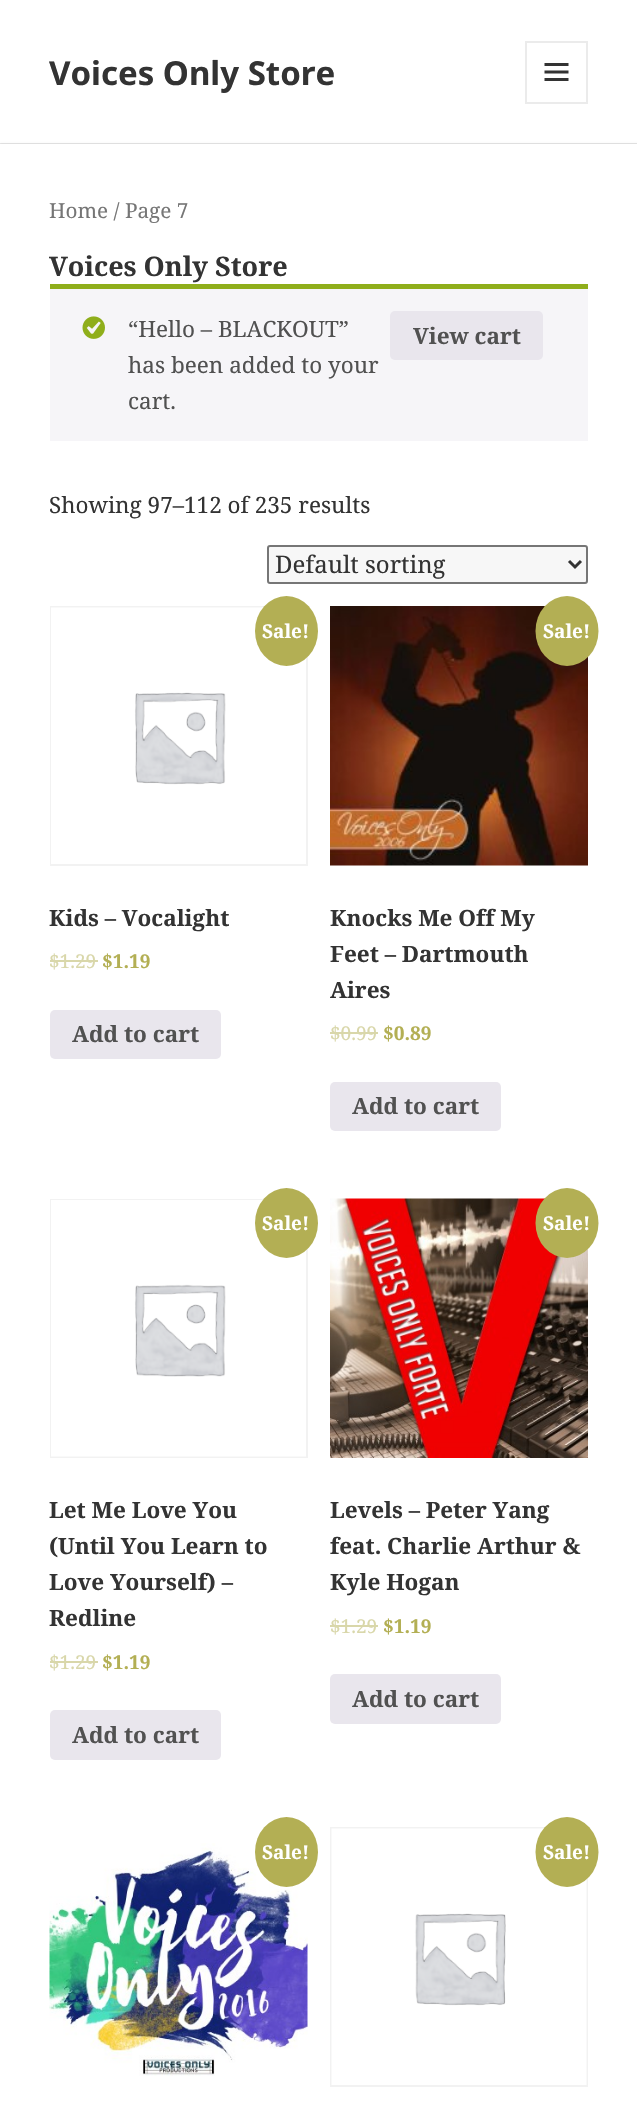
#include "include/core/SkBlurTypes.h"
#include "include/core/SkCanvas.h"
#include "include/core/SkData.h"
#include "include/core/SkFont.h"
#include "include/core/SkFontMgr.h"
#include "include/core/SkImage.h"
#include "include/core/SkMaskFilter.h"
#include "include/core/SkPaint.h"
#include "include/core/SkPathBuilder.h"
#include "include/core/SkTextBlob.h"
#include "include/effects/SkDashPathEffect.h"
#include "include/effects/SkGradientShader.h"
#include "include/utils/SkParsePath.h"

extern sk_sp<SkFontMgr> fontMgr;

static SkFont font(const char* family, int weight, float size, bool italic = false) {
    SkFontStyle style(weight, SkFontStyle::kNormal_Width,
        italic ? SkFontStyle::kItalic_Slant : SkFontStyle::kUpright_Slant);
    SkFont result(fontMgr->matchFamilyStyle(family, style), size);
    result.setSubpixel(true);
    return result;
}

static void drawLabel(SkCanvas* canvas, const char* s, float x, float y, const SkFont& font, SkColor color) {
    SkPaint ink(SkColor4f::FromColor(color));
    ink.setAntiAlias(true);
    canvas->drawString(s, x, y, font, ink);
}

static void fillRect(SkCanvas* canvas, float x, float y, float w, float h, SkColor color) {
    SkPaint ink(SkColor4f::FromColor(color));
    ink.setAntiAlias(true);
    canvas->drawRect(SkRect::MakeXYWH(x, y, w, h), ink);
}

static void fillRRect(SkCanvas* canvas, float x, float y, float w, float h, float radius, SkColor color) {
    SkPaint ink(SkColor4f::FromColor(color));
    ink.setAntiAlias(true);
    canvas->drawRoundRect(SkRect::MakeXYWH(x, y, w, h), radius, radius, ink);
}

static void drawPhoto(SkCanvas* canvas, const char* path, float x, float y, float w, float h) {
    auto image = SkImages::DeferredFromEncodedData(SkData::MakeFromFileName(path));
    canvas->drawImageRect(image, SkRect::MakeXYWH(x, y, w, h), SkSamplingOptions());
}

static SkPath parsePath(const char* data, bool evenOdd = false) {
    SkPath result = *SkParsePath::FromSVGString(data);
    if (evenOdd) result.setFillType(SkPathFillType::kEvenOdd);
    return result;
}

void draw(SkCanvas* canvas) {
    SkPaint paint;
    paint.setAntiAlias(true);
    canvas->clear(0xFFFFFFFF);
    fillRect(canvas, 0, 143, 637, 1, 0xFFEBEBEB);
    SkFont font1 = font("Noto Sans", 700, 33);
    drawLabel(canvas, "Voices Only Store", 49, 85, font1, 0xFF333333);
    paint.setStroke(true);
    paint.setStrokeWidth(2);
    paint.setColor(0xFFEBEBEB);
    canvas->drawRect(SkRect::MakeXYWH(526, 42, 61, 61), paint);
    drawPhoto(canvas, "assets/img1.png", 544, 63, 25, 18);
    paint.setStroke(false);
    paint.setColor(0x26000000);
    paint.setMaskFilter(SkMaskFilter::MakeBlur(kNormal_SkBlurStyle, 1));
    canvas->drawRect(SkRect::MakeXYWH(0, 144, 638, 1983), paint);
    paint.setMaskFilter(nullptr);
    fillRect(canvas, 0, 144, 637, 1980, 0xFFFFFFFF);
    SkFont font2 = font("Noto Serif", 400, 20.75f);
    drawLabel(canvas, "Home / Page 7", 49, 218, font2, 0xFF767676);
    SkFont font3 = font("Noto Serif", 700, 27);
    drawLabel(canvas, "Voices Only Store", 49, 276, font3, 0xFF333333);
    fillRect(canvas, 50, 289, 538, 152, 0xFFF6F5F8);
    fillRect(canvas, 50, 284, 538, 5, 0xFF8FAE1B);
    drawPhoto(canvas, "assets/img2.png", 82, 316, 23, 23);
    SkFont font4 = font("Noto Serif", 400, 22.5f);
    drawLabel(canvas, "“Hello – BLACKOUT”", 128, 337, font4, 0xFF515151);
    fillRRect(canvas, 390, 311, 153, 49, 5, 0xFFE9E6ED);
    SkFont font5 = font("Noto Serif", 700, 22.5f);
    drawLabel(canvas, "View cart", 413, 344, font5, 0xFF515151);
    drawLabel(canvas, "has been added to your", 128, 373, font4, 0xFF515151);
    drawLabel(canvas, "cart.", 128, 409, font4, 0xFF515151);
    drawLabel(canvas, "Showing 97–112 of 235 results", 49, 513, font4, 0xFF333333);
    paint.setColor(0xFFF7F7F7);
    canvas->drawRoundRect(SkRect::MakeXYWH(268, 546, 319, 37), 2, 2, paint);
    paint.setStroke(true);
    paint.setColor(0xFF767676);
    canvas->drawRoundRect(SkRect::MakeXYWH(268, 546, 319, 37), 2, 2, paint);
    paint.setStrokeWidth(3);
    paint.setColor(0xFF333333);
    canvas->drawPath(parsePath("M569 561L575 567L581 561"), paint);
    SkFont font6 = font("Noto Serif", 400, 24);
    drawLabel(canvas, "Default sorting", 275, 573, font6, 0xFF333333);
    paint.setStrokeWidth(2);
    paint.setColor(0xFFF2F2F2);
    canvas->drawRect(SkRect::MakeXYWH(51, 607, 256, 258), paint);
    drawPhoto(canvas, "assets/img3.png", 51, 607, 255, 257);
    paint.setStroke(false);
    paint.setColor(0xFFB3AF54);
    canvas->drawOval(SkRect::MakeXYWH(255, 596, 63, 70), paint);
    SkFont font7 = font("Noto Serif", 700, 19);
    drawLabel(canvas, "Sale!", 262, 638, font7, 0xFFFFFFFF);
    drawLabel(canvas, "Kids – Vocalight", 49, 926, font5, 0xFF333333);
    SkFont font8 = font("Noto Serif", 400, 19);
    drawLabel(canvas, "$1.29", 49, 968, font8, 0xFFD9D7AA);
    fillRect(canvas, 50, 960, 48, 2, 0xFFD9D7AA);
    drawLabel(canvas, "$1.19", 102, 968, font7, 0xFFB3AF54);
    fillRRect(canvas, 50, 1010, 171, 49, 5, 0xFFE9E6ED);
    drawLabel(canvas, "Add to cart", 72, 1042, font5, 0xFF515151);
    drawPhoto(canvas, "assets/img4.png", 330, 606, 258, 260);
    canvas->drawOval(SkRect::MakeXYWH(535.5f, 596, 63, 70), paint);
    drawLabel(canvas, "Sale!", 543, 638, font7, 0xFFFFFFFF);
    drawLabel(canvas, "Knocks Me Off My", 330, 926, font5, 0xFF333333);
    drawLabel(canvas, "Feet – Dartmouth", 330, 962, font5, 0xFF333333);
    drawLabel(canvas, "Aires", 330, 998, font5, 0xFF333333);
    drawLabel(canvas, "$0.99", 330, 1040, font8, 0xFFD9D7AA);
    fillRect(canvas, 330, 1032, 48, 2, 0xFFD9D7AA);
    drawLabel(canvas, "$0.89", 383, 1040, font7, 0xFFB3AF54);
    fillRRect(canvas, 330, 1082, 171, 49, 5, 0xFFE9E6ED);
    drawLabel(canvas, "Add to cart", 352, 1114, font5, 0xFF515151);
    paint.setStroke(true);
    paint.setColor(0xFFF2F2F2);
    canvas->drawRect(SkRect::MakeXYWH(51, 1200, 256, 257), paint);
    drawPhoto(canvas, "assets/img5.png", 51, 1200, 255, 257);
    paint.setStroke(false);
    paint.setColor(0xFFB3AF54);
    canvas->drawOval(SkRect::MakeXYWH(255, 1188, 63, 70), paint);
    drawLabel(canvas, "Sale!", 262, 1230, font7, 0xFFFFFFFF);
    drawLabel(canvas, "Let Me Love You", 49, 1518, font5, 0xFF333333);
    drawLabel(canvas, "(Until You Learn to", 49, 1554, font5, 0xFF333333);
    drawLabel(canvas, "Love Yourself) –", 49, 1590, font5, 0xFF333333);
    drawLabel(canvas, "Redline", 49, 1626, font5, 0xFF333333);
    drawLabel(canvas, "$1.29", 49, 1669, font8, 0xFFD9D7AA);
    fillRect(canvas, 50, 1661, 48, 2, 0xFFD9D7AA);
    drawLabel(canvas, "$1.19", 102, 1669, font7, 0xFFB3AF54);
    fillRRect(canvas, 50, 1710, 171, 50, 5, 0xFFE9E6ED);
    drawLabel(canvas, "Add to cart", 72, 1743, font5, 0xFF515151);
    drawPhoto(canvas, "assets/img6.png", 330, 1198, 258, 260);
    canvas->drawOval(SkRect::MakeXYWH(535.5f, 1188, 63, 70), paint);
    drawLabel(canvas, "Sale!", 543, 1230, font7, 0xFFFFFFFF);
    drawLabel(canvas, "Levels – Peter Yang", 330, 1518, font5, 0xFF333333);
    drawLabel(canvas, "feat. Charlie Arthur &", 330, 1554, font5, 0xFF333333);
    drawLabel(canvas, "Kyle Hogan", 330, 1590, font5, 0xFF333333);
    drawLabel(canvas, "$1.29", 330, 1633, font8, 0xFFD9D7AA);
    fillRect(canvas, 330, 1625, 48, 2, 0xFFD9D7AA);
    drawLabel(canvas, "$1.19", 383, 1633, font7, 0xFFB3AF54);
    fillRRect(canvas, 330, 1674, 171, 50, 5, 0xFFE9E6ED);
    drawLabel(canvas, "Add to cart", 352, 1707, font5, 0xFF515151);
    drawPhoto(canvas, "assets/img7.png", 49, 1843, 259, 233);
    canvas->drawOval(SkRect::MakeXYWH(255, 1817, 63, 70), paint);
    drawLabel(canvas, "Sale!", 262, 1859, font7, 0xFFFFFFFF);
    paint.setStroke(true);
    paint.setColor(0xFFF2F2F2);
    canvas->drawRect(SkRect::MakeXYWH(331, 1828, 256, 258), paint);
    drawPhoto(canvas, "assets/img8.png", 331, 1828, 256, 257);
    paint.setStroke(false);
    paint.setColor(0xFFB3AF54);
    canvas->drawOval(SkRect::MakeXYWH(535.5f, 1817, 63, 70), paint);
    drawLabel(canvas, "Sale!", 543, 1859, font7, 0xFFFFFFFF);
}
